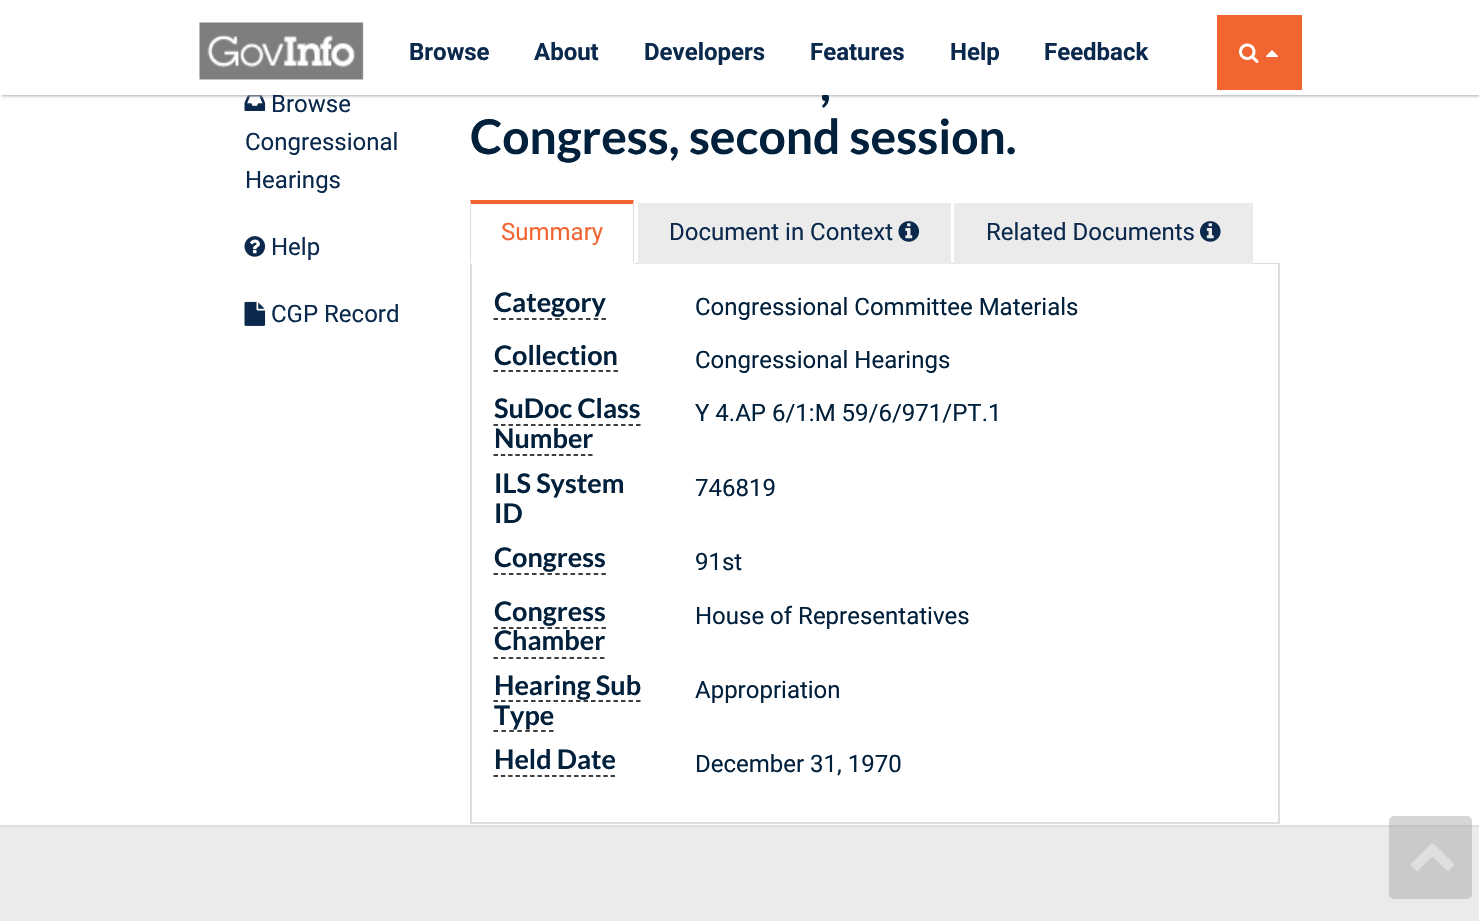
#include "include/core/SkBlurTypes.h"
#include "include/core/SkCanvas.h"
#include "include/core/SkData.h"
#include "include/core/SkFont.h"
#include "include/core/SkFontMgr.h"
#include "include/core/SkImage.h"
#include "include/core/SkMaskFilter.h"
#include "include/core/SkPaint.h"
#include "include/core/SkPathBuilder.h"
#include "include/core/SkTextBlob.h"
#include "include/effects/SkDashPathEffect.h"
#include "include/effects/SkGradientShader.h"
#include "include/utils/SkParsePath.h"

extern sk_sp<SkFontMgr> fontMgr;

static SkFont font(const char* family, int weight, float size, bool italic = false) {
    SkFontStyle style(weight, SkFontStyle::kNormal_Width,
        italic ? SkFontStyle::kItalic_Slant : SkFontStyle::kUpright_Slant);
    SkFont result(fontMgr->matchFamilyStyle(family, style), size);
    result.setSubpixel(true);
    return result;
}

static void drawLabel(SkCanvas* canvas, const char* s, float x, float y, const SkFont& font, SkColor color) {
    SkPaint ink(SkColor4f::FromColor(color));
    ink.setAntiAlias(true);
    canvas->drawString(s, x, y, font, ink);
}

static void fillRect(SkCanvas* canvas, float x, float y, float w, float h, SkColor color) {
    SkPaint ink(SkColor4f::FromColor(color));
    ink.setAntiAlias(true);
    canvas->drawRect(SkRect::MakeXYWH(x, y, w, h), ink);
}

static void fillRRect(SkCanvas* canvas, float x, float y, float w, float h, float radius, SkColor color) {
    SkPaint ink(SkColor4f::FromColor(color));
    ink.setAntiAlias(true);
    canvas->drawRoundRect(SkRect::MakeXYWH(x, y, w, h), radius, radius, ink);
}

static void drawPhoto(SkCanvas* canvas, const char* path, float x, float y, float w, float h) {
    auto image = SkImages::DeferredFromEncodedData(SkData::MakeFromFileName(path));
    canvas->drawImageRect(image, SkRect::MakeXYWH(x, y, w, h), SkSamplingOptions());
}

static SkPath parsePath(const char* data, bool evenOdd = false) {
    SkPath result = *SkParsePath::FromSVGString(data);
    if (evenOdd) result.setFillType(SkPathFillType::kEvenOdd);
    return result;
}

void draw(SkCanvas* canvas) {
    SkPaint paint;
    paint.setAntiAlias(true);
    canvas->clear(0xFFFFFFFF);
    drawPhoto(canvas, "assets/img4.png", 244, 95, 22, 16);
    paint.setColor(0xFFACACAE);
    paint.setMaskFilter(SkMaskFilter::MakeBlur(kNormal_SkBlurStyle, 1.5f));
    canvas->drawRect(SkRect::MakeXYWH(2, 2, 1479, 94), paint);
    paint.setMaskFilter(nullptr);
    SkFont font1 = font("Roboto", 400, 24);
    drawLabel(canvas, "Browse", 271, 112, font1, 0xFF0B294D);
    SkFont font2 = font("Lato", 700, 48);
    drawLabel(canvas, ",", 820, 101, font2, 0xFF01203B);
    fillRect(canvas, 0, 0, 1479, 95, 0xFFFFFFFF);
    drawPhoto(canvas, "assets/img1.png", 199, 22, 165, 58);
    SkFont font3 = font("Roboto", 700, 24);
    drawLabel(canvas, "Browse", 409, 60, font3, 0xFF0B294D);
    drawLabel(canvas, "About", 534, 60, font3, 0xFF0B294D);
    drawLabel(canvas, "Developers", 644, 60, font3, 0xFF0B294D);
    drawLabel(canvas, "Features", 810, 60, font3, 0xFF0B294D);
    drawLabel(canvas, "Help", 950, 60, font3, 0xFF0B294D);
    drawLabel(canvas, "Feedback", 1044, 60, font3, 0xFF0B294D);
    fillRect(canvas, 1217, 15, 85, 75, 0xFFF26531);
    drawPhoto(canvas, "assets/img2.png", 1239, 43, 20, 20);
    drawPhoto(canvas, "assets/img3.png", 1266, 50, 12, 7);
    drawLabel(canvas, "Congressional", 245, 150, font1, 0xFF0B294D);
    drawLabel(canvas, "Hearings", 245, 188, font1, 0xFF0B294D);
    drawPhoto(canvas, "assets/img5.png", 244, 236, 22, 21);
    drawLabel(canvas, "Help", 271, 255, font1, 0xFF0B294D);
    drawPhoto(canvas, "assets/img6.png", 244, 301, 22, 25);
    drawLabel(canvas, "CGP Record", 271, 322, font1, 0xFF0B294D);
    drawLabel(canvas, "Congress, second session.", 470, 154, font2, 0xFF01203B);
    fillRect(canvas, 635, 263, 645, 1, 0xFFDDDDDD);
    paint.setColor(0xFFF26531);
    canvas->drawPath(parsePath("M470 200H634L633 204H471Z"), paint);
    paint.setColor(0xFFDDDDDD);
    canvas->drawPath(parsePath("M634 200V264L633 262V204Z"), paint);
    canvas->drawPath(parsePath("M470 264V200L471 204V262Z"), paint);
    drawLabel(canvas, "Summary", 501, 240, font1, 0xFFF26531);
    fillRect(canvas, 638, 203, 313, 61, 0xFFEBEBEB);
    drawLabel(canvas, "Document in Context", 669, 240, font1, 0xFF0B294D);
    drawPhoto(canvas, "assets/img7.png", 898, 221, 22, 21);
    fillRect(canvas, 954, 203, 299, 61, 0xFFEBEBEB);
    drawLabel(canvas, "Related Documents", 986, 240, font1, 0xFF0B294D);
    drawPhoto(canvas, "assets/img8.png", 1200, 221, 21, 21);
    fillRect(canvas, 1278, 264, 2, 560, 0xFFDDDDDD);
    fillRect(canvas, 470, 822, 810, 2, 0xFFDDDDDD);
    fillRect(canvas, 470, 264, 2, 560, 0xFFDDDDDD);
    SkFont font4 = font("Lato", 700, 27);
    drawLabel(canvas, "Category", 494, 312, font4, 0xFF01203B);
    paint.setStroke(true);
    paint.setStrokeWidth(1.5f);
    paint.setColor(0xFF000000);
    paint.setPathEffect(SkDashPathEffect::Make({{4.5f, 3.21f}}, 0));
    canvas->drawPath(parsePath("M493.5 319H606"), paint);
    paint.setPathEffect(nullptr);
    drawLabel(canvas, "Congressional Committee Materials", 695, 315, font1, 0xFF01203B);
    drawLabel(canvas, "Collection", 494, 365, font4, 0xFF01203B);
    paint.setPathEffect(SkDashPathEffect::Make({{4.5f, 3}}, 0));
    canvas->drawPath(parsePath("M493.5 371H618"), paint);
    paint.setPathEffect(nullptr);
    drawLabel(canvas, "Congressional Hearings", 695, 368, font1, 0xFF01203B);
    drawLabel(canvas, "SuDoc Class", 494, 418, font4, 0xFF01203B);
    drawLabel(canvas, "Number", 494, 448, font4, 0xFF01203B);
    paint.setPathEffect(SkDashPathEffect::Make({{4.5f, 3}}, 0));
    canvas->drawPath(parsePath("M493.5 425H640.5"), paint);
    paint.setPathEffect(nullptr);
    paint.setPathEffect(SkDashPathEffect::Make({{4.5f, 2.78f}}, 0));
    canvas->drawPath(parsePath("M493.5 455H592.5"), paint);
    paint.setPathEffect(nullptr);
    drawLabel(canvas, "Y 4.AP 6/1:M 59/6/971/PT.1", 695, 421, font1, 0xFF01203B);
    drawLabel(canvas, "ILS System", 494, 493, font4, 0xFF01203B);
    drawLabel(canvas, "ID", 494, 523, font4, 0xFF01203B);
    drawLabel(canvas, "746819", 695, 496, font1, 0xFF01203B);
    drawLabel(canvas, "Congress", 494, 567, font4, 0xFF01203B);
    paint.setPathEffect(SkDashPathEffect::Make({{4.5f, 3.21f}}, 0));
    canvas->drawPath(parsePath("M493.5 574H606"), paint);
    paint.setPathEffect(nullptr);
    drawLabel(canvas, "91st", 695, 570, font1, 0xFF01203B);
    drawLabel(canvas, "Congress", 494, 621, font4, 0xFF01203B);
    drawLabel(canvas, "Chamber", 494, 650, font4, 0xFF01203B);
    paint.setPathEffect(SkDashPathEffect::Make({{4.5f, 3.21f}}, 0));
    canvas->drawPath(parsePath("M493.5 628H606"), paint);
    paint.setPathEffect(nullptr);
    paint.setPathEffect(SkDashPathEffect::Make({{4.5f, 3.1f}}, 0));
    canvas->drawPath(parsePath("M493.5 658H604.5"), paint);
    paint.setPathEffect(nullptr);
    drawLabel(canvas, "House of Representatives", 695, 624, font1, 0xFF01203B);
    drawLabel(canvas, "Hearing Sub", 494, 695, font4, 0xFF01203B);
    paint.setPathEffect(SkDashPathEffect::Make({{4.5f, 3}}, 0));
    canvas->drawPath(parsePath("M493.5 701H640.5"), paint);
    paint.setPathEffect(nullptr);
    drawLabel(canvas, "Type", 494, 725, font4, 0xFF01203B);
    paint.setPathEffect(SkDashPathEffect::Make({{4.5f, 3.44f}}, 0));
    canvas->drawPath(parsePath("M493.5 731H553.5"), paint);
    paint.setPathEffect(nullptr);
    drawLabel(canvas, "Appropriation", 695, 698, font1, 0xFF01203B);
    drawLabel(canvas, "Held Date", 494, 769, font4, 0xFF01203B);
    paint.setPathEffect(SkDashPathEffect::Make({{4.5f, 2.82f}}, 0));
    canvas->drawPath(parsePath("M493.5 776H615"), paint);
    paint.setPathEffect(nullptr);
    drawLabel(canvas, "December 31, 1970", 695, 772, font1, 0xFF01203B);
    fillRect(canvas, 0, 827, 1479, 94, 0xFFEBEBEB);
    fillRect(canvas, 0, 825, 1479, 2, 0xFFDEDFE1);
    fillRRect(canvas, 1389, 816, 83, 83, 5, 0x66999999);
    drawPhoto(canvas, "assets/img9.png", 1411, 843, 43, 28);
}
